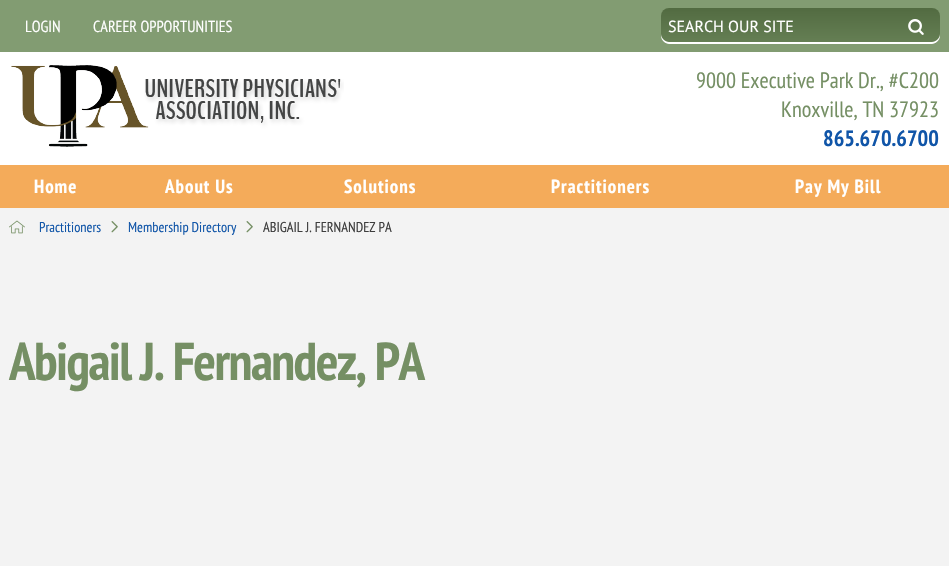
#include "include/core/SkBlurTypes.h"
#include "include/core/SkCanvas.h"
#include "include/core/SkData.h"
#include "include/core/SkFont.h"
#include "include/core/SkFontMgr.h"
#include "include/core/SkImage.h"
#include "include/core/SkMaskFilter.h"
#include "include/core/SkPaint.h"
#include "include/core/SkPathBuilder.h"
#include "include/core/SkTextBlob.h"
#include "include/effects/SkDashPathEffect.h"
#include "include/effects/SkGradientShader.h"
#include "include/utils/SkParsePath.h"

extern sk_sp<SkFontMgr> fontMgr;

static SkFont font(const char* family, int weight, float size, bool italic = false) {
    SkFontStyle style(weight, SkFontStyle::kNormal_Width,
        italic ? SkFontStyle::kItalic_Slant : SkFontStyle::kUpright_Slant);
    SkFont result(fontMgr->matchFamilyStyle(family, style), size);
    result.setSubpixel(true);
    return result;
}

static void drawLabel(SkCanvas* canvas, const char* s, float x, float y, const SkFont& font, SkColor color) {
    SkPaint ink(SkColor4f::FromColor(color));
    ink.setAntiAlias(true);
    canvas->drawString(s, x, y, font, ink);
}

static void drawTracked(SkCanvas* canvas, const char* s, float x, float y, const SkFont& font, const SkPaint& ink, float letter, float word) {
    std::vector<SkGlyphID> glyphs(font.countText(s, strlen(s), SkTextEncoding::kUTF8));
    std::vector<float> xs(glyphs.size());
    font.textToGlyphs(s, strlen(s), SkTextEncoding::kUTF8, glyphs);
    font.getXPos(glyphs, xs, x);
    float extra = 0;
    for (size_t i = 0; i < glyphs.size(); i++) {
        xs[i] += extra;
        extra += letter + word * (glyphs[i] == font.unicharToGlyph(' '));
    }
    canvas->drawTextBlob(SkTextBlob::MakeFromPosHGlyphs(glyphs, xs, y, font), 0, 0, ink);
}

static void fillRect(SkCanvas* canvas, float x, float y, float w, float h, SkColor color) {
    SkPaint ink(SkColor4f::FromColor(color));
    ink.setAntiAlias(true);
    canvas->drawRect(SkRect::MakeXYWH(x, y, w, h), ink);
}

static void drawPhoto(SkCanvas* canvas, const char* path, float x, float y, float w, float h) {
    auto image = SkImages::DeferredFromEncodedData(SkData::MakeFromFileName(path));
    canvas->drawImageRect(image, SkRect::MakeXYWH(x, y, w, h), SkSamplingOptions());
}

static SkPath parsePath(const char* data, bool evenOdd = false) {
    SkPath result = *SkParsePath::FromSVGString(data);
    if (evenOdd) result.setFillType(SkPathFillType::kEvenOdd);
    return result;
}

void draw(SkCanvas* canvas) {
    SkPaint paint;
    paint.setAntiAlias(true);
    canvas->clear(0xFFF3F3F3);
    fillRect(canvas, 0, 0, 949, 52, 0xFF829C72);
    SkFont font1 = font("PT Sans Narrow", 400, 16);
    drawLabel(canvas, "LOGIN", 25, 32, font1, 0xFFFFFFFF);
    drawLabel(canvas, "CAREER OPPORTUNITIES", 93, 32, font1, 0xFFFFFFFF);
    {
        const SkColor colors[] = {0xFF526B41, 0xFF668055};
        const float stops[] = {0, 1};
        const SkPoint ends[] = {{801, 8}, {801, 44}};
        paint.setShader(SkGradientShader::MakeLinear(ends, colors, stops, 2, SkTileMode::kClamp));
        paint.setAlpha(255);
    }
    canvas->drawRoundRect(SkRect::MakeXYWH(661, 8, 279, 36), 8, 8, paint);
    paint.setShader(nullptr);
    paint.setColor(0xFFFFFFFF);
    canvas->drawPath(parsePath("M661 34V36C661 40 665 44 669 44H932C936 44 940 40 940 36V34C940 38 936 42 932 42H669C665 42 661 38 661 34Z"), paint);
    SkFont font2 = font("PT Sans", 400, 16);
    drawLabel(canvas, "SEARCH OUR SITE", 668, 32, font2, 0xFFFFFFFF);
    drawPhoto(canvas, "assets/img1.png", 908, 19, 16, 16);
    fillRect(canvas, 0, 52, 949, 113, 0xFFFFFFFF);
    drawPhoto(canvas, "assets/img2.png", 11, 65, 333, 82);
    SkFont font3 = font("PT Sans Narrow", 400, 22.25f);
    drawLabel(canvas, "9000 Executive Park Dr., #C200", 696, 88, font3, 0xFF758F64);
    drawLabel(canvas, "Knoxville, TN 37923", 781, 117, font3, 0xFF758F64);
    SkFont font4 = font("PT Sans Narrow", 700, 22.25f);
    drawLabel(canvas, "865.670.6700", 823, 146, font4, 0xFF1055A8);
    fillRect(canvas, 0, 165, 949, 43, 0xFFF4AB5A);
    SkFont font5 = font("PT Sans Narrow", 700, 19);
    drawTracked(canvas, "Home", 34, 193, font5, paint, 1, 0);
    drawTracked(canvas, "About Us", 165, 193, font5, paint, 1, 0);
    drawTracked(canvas, "Solutions", 344, 193, font5, paint, 1, 0);
    drawTracked(canvas, "Practitioners", 551, 193, font5, paint, 1, 0);
    drawTracked(canvas, "Pay My Bill", 795, 193, font5, paint, 1, 0);
    drawPhoto(canvas, "assets/img3.png", 9, 220, 16, 14);
    SkFont font6 = font("PT Sans Narrow", 400, 14.25f);
    drawLabel(canvas, "Practitioners", 39, 232, font6, 0xFF1055A8);
    drawPhoto(canvas, "assets/img4.png", 111, 221, 7, 12);
    drawLabel(canvas, "Membership Directory", 128, 232, font6, 0xFF1055A8);
    drawPhoto(canvas, "assets/img4.png", 246, 221, 7, 12);
    drawLabel(canvas, "ABIGAIL J. FERNANDEZ PA", 263, 232, font6, 0xFF3D3D3D);
    SkFont font7 = font("PT Sans Narrow", 700, 53.25f);
    paint.setColor(0xFF758F64);
    drawTracked(canvas, "Abigail J. Fernandez, PA", 9, 380, font7, paint, -1.6f, 0);
}
